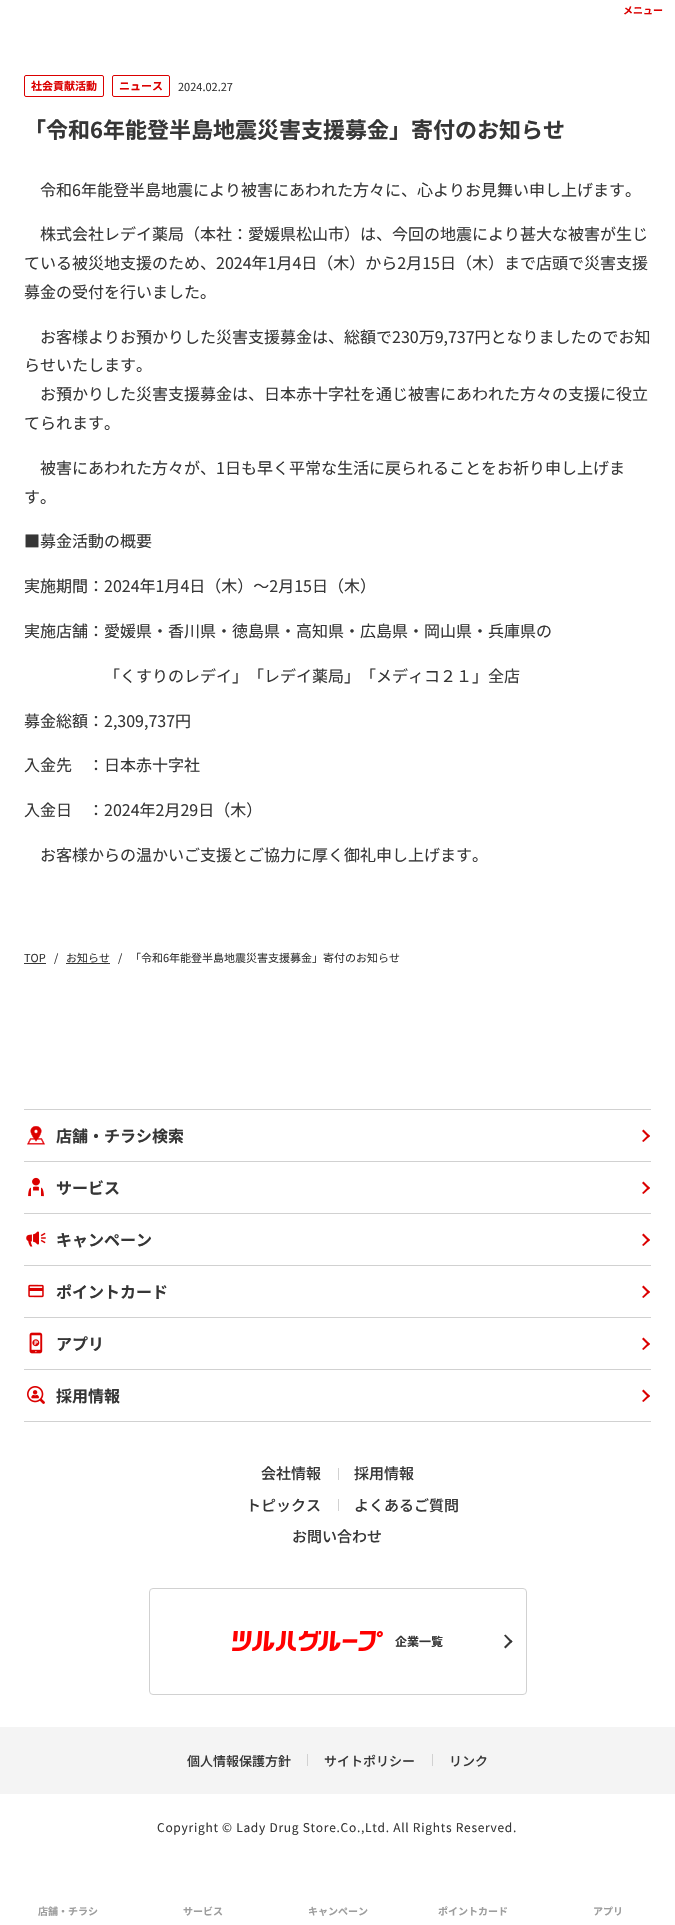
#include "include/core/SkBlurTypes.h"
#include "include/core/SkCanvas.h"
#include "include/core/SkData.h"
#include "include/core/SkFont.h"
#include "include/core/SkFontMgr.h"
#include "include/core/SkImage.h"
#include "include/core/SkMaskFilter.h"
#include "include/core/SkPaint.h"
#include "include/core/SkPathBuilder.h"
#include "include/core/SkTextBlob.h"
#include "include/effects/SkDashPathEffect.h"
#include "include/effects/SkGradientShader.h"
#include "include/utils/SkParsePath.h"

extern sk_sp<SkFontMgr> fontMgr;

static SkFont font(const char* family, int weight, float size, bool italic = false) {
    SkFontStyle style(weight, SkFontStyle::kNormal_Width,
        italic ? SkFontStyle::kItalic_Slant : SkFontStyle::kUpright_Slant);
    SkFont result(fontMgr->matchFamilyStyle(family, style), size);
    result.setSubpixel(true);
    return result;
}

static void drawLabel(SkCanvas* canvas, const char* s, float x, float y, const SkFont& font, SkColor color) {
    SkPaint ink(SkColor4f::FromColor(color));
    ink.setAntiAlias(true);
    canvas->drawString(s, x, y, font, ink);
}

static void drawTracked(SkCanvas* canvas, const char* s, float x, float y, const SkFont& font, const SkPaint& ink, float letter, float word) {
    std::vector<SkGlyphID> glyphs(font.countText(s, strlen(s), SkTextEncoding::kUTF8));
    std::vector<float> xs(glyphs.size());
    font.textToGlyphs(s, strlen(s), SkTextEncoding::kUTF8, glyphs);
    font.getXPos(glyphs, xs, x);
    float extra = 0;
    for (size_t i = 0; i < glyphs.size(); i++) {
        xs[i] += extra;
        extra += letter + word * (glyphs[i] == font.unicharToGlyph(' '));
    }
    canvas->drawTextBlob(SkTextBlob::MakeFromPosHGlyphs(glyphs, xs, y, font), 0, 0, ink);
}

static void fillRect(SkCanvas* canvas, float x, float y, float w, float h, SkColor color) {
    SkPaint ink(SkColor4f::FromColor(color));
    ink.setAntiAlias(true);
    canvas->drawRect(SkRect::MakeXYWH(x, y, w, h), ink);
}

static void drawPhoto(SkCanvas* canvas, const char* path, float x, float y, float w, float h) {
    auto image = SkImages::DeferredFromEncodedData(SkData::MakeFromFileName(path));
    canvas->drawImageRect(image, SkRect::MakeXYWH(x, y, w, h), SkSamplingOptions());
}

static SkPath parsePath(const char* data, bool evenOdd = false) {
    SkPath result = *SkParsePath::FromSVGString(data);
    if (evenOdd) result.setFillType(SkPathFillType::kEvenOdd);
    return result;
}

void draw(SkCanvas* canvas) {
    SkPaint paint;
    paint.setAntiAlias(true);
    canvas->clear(0xFFFFFFFF);
    SkFont font1 = font("Noto Sans JP", 700, 10);
    drawLabel(canvas, "メニュー", 623, 14, font1, 0xFFDB0000);
    paint.setStroke(true);
    paint.setStrokeWidth(1);
    paint.setColor(0xFFDB0000);
    canvas->drawRoundRect(SkRect::MakeXYWH(24.5f, 75.5f, 79, 21), 1.5f, 1.5f, paint);
    SkFont font2 = font("Noto Sans JP", 700, 11);
    drawLabel(canvas, "社会貢献活動", 31, 90, font2, 0xFFDB0000);
    canvas->drawRoundRect(SkRect::MakeXYWH(112.5f, 75.5f, 57, 21), 1.5f, 1.5f, paint);
    drawLabel(canvas, "ニュース", 119, 90, font2, 0xFFDB0000);
    SkFont font3 = font("Noto Sans JP", 400, 11);
    drawLabel(canvas, "2024.02.27", 178, 91, font3, 0xFF363636);
    SkFont font4 = font("Noto Sans JP", 700, 22);
    drawLabel(canvas, "「令和6年能登半島地震災害支援募金」寄付のお知らせ", 24, 138, font4, 0xFF363636);
    SkFont font5 = font("Noto Sans JP", 400, 16);
    drawLabel(canvas, "令和6年能登半島地震により被害にあわれた方々に、心よりお見舞い申し上げます。", 40, 196, font5, 0xFF363636);
    drawLabel(canvas, "株式会社レデイ薬局（本社：愛媛県松山市）は、今回の地震により甚大な被害が生じ", 40, 240, font5, 0xFF363636);
    drawLabel(canvas, "ている被災地支援のため、2024年1月4日（木）から2月15日（木）まで店頭で災害支援", 24, 269, font5, 0xFF363636);
    drawLabel(canvas, "募金の受付を行いました。", 24, 298, font5, 0xFF363636);
    drawLabel(canvas, "お客様よりお預かりした災害支援募金は、総額で230万9,737円となりましたのでお知", 40, 343, font5, 0xFF363636);
    drawLabel(canvas, "らせいたします。", 24, 371, font5, 0xFF363636);
    drawLabel(canvas, "お預かりした災害支援募金は、日本赤十字社を通じ被害にあわれた方々の支援に役立", 40, 400, font5, 0xFF363636);
    drawLabel(canvas, "てられます。", 24, 429, font5, 0xFF363636);
    drawLabel(canvas, "被害にあわれた方々が、1日も早く平常な生活に戻られることをお祈り申し上げま", 40, 474, font5, 0xFF363636);
    drawLabel(canvas, "す。", 24, 503, font5, 0xFF363636);
    drawLabel(canvas, "■募金活動の概要", 24, 547, font5, 0xFF363636);
    drawLabel(canvas, "実施期間：2024年1月4日（木）～2月15日（木）", 24, 592, font5, 0xFF363636);
    drawLabel(canvas, "実施店舗：愛媛県・香川県・徳島県・高知県・広島県・岡山県・兵庫県の", 24, 637, font5, 0xFF363636);
    drawLabel(canvas, "「くすりのレデイ」「レデイ薬局」「メディコ２１」全店", 104, 682, font5, 0xFF363636);
    drawLabel(canvas, "募金総額：2,309,737円", 24, 727, font5, 0xFF363636);
    drawLabel(canvas, "入金先　：日本赤十字社", 24, 771, font5, 0xFF363636);
    drawLabel(canvas, "入金日　：2024年2月29日（木）", 24, 816, font5, 0xFF363636);
    drawLabel(canvas, "お客様からの温かいご支援とご協力に厚く御礼申し上げます。", 40, 861, font5, 0xFF363636);
    drawLabel(canvas, "TOP", 24, 962, font3, 0xFF363636);
    fillRect(canvas, 24, 963, 22, 1, 0xFF363636);
    drawLabel(canvas, "/", 54, 962, font3, 0xFF363636);
    drawLabel(canvas, "お知らせ", 66, 962, font3, 0xFF363636);
    fillRect(canvas, 66, 963, 44, 1, 0xFF363636);
    drawLabel(canvas, "/", 118, 962, font3, 0xFF363636);
    drawLabel(canvas, "「令和6年能登半島地震災害支援募金」寄付のお知らせ", 130, 962, font3, 0xFF363636);
    fillRect(canvas, 24, 1421, 627, 1, 0xFFD1D1D1);
    fillRect(canvas, 24, 1109, 627, 1, 0xFFD1D1D1);
    drawPhoto(canvas, "assets/img1.png", 27, 1126, 18, 19);
    SkFont font6 = font("Noto Sans JP", 700, 16);
    drawLabel(canvas, "店舗・チラシ検索", 56, 1142, font6, 0xFF363636);
    paint.setStroke(false);
    canvas->drawPath(parsePath("M643.5 1129.5L650 1136L648.5 1137.5L642 1131Z"), paint);
    canvas->drawPath(parsePath("M648.5 1134.5L650 1136L643.5 1142L642 1141Z"), paint);
    fillRect(canvas, 24, 1161, 627, 1, 0xFFD1D1D1);
    drawPhoto(canvas, "assets/img2.png", 28, 1177, 16, 20);
    drawLabel(canvas, "サービス", 56, 1194, font6, 0xFF363636);
    canvas->drawPath(parsePath("M643.5 1181.5L650 1188L648.5 1189.5L642 1183Z"), paint);
    canvas->drawPath(parsePath("M648.5 1186.5L650 1188L643.5 1194L642 1193Z"), paint);
    fillRect(canvas, 24, 1213, 627, 1, 0xFFD1D1D1);
    drawPhoto(canvas, "assets/img3.png", 26, 1231, 20, 16);
    drawLabel(canvas, "キャンペーン", 56, 1246, font6, 0xFF363636);
    canvas->drawPath(parsePath("M643.5 1233.5L650 1240L648.5 1241.5L642 1235Z"), paint);
    canvas->drawPath(parsePath("M648.5 1238.5L650 1240L643.5 1246L642 1245Z"), paint);
    fillRect(canvas, 24, 1265, 627, 1, 0xFFD1D1D1);
    drawPhoto(canvas, "assets/img4.png", 28, 1284, 16, 14);
    drawLabel(canvas, "ポイントカード", 56, 1298, font6, 0xFF363636);
    canvas->drawPath(parsePath("M643.5 1285.5L650 1292L648.5 1293.5L642 1287Z"), paint);
    canvas->drawPath(parsePath("M648.5 1290.5L650 1292L643.5 1298L642 1297Z"), paint);
    fillRect(canvas, 24, 1317, 627, 1, 0xFFD1D1D1);
    drawPhoto(canvas, "assets/img5.png", 29, 1332, 14, 22);
    drawLabel(canvas, "アプリ", 56, 1350, font6, 0xFF363636);
    canvas->drawPath(parsePath("M643.5 1337.5L650 1344L648.5 1345.5L642 1339Z"), paint);
    canvas->drawPath(parsePath("M648.5 1342.5L650 1344L643.5 1350L642 1349Z"), paint);
    fillRect(canvas, 24, 1369, 627, 1, 0xFFD1D1D1);
    drawPhoto(canvas, "assets/img6.png", 27, 1386, 18, 18);
    drawLabel(canvas, "採用情報", 56, 1402, font6, 0xFF363636);
    canvas->drawPath(parsePath("M643.5 1389.5L650 1396L648.5 1397.5L642 1391Z"), paint);
    canvas->drawPath(parsePath("M648.5 1394.5L650 1396L643.5 1402L642 1401Z"), paint);
    SkFont font7 = font("Noto Sans JP", 500, 15);
    drawLabel(canvas, "会社情報", 261, 1479, font7, 0xFF363636);
    fillRect(canvas, 338, 1468, 1, 12, 0xFFD1D1D1);
    drawLabel(canvas, "採用情報", 354, 1479, font7, 0xFF363636);
    drawLabel(canvas, "トピックス", 246, 1511, font7, 0xFF363636);
    fillRect(canvas, 338, 1499, 1, 12, 0xFFD1D1D1);
    drawLabel(canvas, "よくあるご質問", 354, 1511, font7, 0xFF363636);
    drawLabel(canvas, "お問い合わせ", 292, 1542, font7, 0xFF363636);
    paint.setStroke(true);
    paint.setColor(0xFFD1D1D1);
    canvas->drawRoundRect(SkRect::MakeXYWH(149.5f, 1588.5f, 377, 106), 3.5f, 3.5f, paint);
    drawPhoto(canvas, "assets/img7.png", 232, 1631, 151, 20);
    SkFont font8 = font("Noto Sans JP", 700, 12);
    drawLabel(canvas, "企業一覧", 395, 1646, font8, 0xFF363636);
    paint.setStroke(false);
    paint.setColor(0xFF363636);
    canvas->drawPath(parsePath("M505.5 1634.5L512.5 1641.5L511 1643L504 1635.5Z"), paint);
    canvas->drawPath(parsePath("M511 1640L512.5 1641.5L505.5 1648.5L504 1647Z"), paint);
    fillRect(canvas, 0, 1727, 675, 67, 0xFFF4F4F4);
    SkFont font9 = font("Noto Sans JP", 500, 13);
    drawLabel(canvas, "個人情報保護方針", 187, 1766, font9, 0xFF363636);
    fillRect(canvas, 307, 1754, 1, 12, 0xFFD1D1D1);
    drawLabel(canvas, "サイトポリシー", 324, 1766, font9, 0xFF363636);
    fillRect(canvas, 432, 1754, 1, 12, 0xFFD1D1D1);
    drawLabel(canvas, "リンク", 449, 1766, font9, 0xFF363636);
    SkFont font10 = font("Noto Sans JP", 400, 12);
    drawTracked(canvas, "Copyright © Lady Drug Store.Co.,Ltd. All Rights Reserved.", 157, 1832, font10, paint, 0.72f, 0);
    drawLabel(canvas, "店舗・チラシ", 38, 1915, font1, 0xFF9D9D9D);
    drawLabel(canvas, "サービス", 183, 1915, font1, 0xFF9D9D9D);
    drawLabel(canvas, "キャンペーン", 308, 1915, font1, 0xFF9D9D9D);
    drawLabel(canvas, "ポイントカード", 438, 1915, font1, 0xFF9D9D9D);
    drawLabel(canvas, "アプリ", 593, 1915, font1, 0xFF9D9D9D);
}
